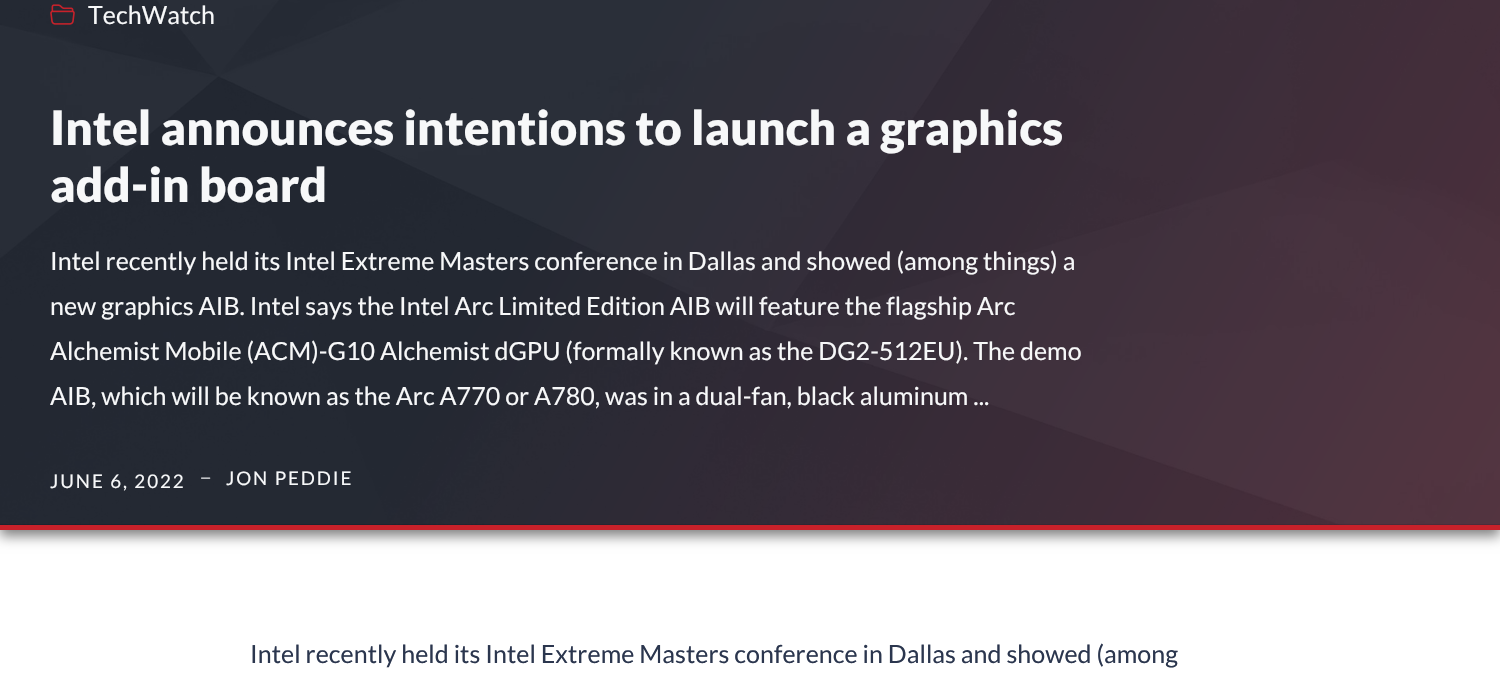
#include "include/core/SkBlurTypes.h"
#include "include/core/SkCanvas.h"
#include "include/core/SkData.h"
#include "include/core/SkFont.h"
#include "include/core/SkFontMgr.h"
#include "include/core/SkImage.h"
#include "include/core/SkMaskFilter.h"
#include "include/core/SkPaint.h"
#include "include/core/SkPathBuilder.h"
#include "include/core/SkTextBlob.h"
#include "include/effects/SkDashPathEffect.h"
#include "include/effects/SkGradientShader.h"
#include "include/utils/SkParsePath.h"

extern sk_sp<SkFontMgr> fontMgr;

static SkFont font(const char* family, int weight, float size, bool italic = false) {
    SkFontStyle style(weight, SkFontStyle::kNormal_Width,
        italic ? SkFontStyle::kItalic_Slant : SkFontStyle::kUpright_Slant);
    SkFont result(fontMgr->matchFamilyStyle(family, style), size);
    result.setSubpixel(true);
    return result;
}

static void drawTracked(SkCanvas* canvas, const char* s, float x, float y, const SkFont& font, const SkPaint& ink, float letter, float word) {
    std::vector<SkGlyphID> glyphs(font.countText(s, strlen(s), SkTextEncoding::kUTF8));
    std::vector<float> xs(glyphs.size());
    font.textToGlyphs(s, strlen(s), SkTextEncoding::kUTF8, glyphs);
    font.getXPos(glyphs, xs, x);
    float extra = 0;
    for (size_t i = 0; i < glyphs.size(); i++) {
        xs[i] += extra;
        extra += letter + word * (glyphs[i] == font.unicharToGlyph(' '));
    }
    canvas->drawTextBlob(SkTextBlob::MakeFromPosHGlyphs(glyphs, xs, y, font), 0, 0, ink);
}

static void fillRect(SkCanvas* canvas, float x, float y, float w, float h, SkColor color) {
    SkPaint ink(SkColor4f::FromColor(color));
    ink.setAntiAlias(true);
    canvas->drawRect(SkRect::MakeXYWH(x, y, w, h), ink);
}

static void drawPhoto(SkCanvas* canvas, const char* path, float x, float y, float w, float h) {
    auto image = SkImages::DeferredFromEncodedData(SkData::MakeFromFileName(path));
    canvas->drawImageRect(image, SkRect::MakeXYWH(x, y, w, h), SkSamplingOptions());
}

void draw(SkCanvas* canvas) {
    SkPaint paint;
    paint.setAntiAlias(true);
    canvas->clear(0xFFFFFFFF);
    paint.setColor(0x80000000);
    paint.setMaskFilter(SkMaskFilter::MakeBlur(kNormal_SkBlurStyle, 6));
    canvas->drawRect(SkRect::MakeXYWH(0, -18, 1500, 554), paint);
    paint.setMaskFilter(nullptr);
    {
        const SkColor colors[] = {0xFF161B27, 0xFF462331};
        const float stops[] = {0.4f, 1};
        const SkPoint ends[] = {{33, -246}, {1467, 582}};
        paint.setShader(SkGradientShader::MakeLinear(ends, colors, stops, 2, SkTileMode::kClamp));
        paint.setAlpha(255);
    }
    canvas->drawRect(SkRect::MakeXYWH(0, 0, 1500, 525), paint);
    fillRect(canvas, 0, 525, 1500, 5, 0xFFC8212A);
    drawPhoto(canvas, "assets/img1.png", 0, 0, 1500, 525);
    drawPhoto(canvas, "assets/img2.png", 50, 4, 25, 21);
    SkFont font1 = font("Lato", 400, 25);
    paint.setShader(nullptr);
    paint.setColor(0xFFF7F8F9);
    drawTracked(canvas, "TechWatch", 88, 24, font1, paint, 0.05f, 0);
    SkFont font2 = font("Lato", 900, 47.5f);
    drawTracked(canvas, "Intel announces intentions to launch a graphics", 50, 145, font2, paint, 0.05f, 0);
    drawTracked(canvas, "add-in board", 50, 202, font2, paint, 0.05f, 0);
    drawTracked(canvas, "Intel recently held its Intel Extreme Masters conference in Dallas and showed (among things) a", 50, 270, font1, paint, 0.05f, 0);
    drawTracked(canvas, "new graphics AIB. Intel says the Intel Arc Limited Edition AIB will feature the flagship Arc", 50, 315, font1, paint, 0.05f, 0);
    drawTracked(canvas, "Alchemist Mobile (ACM)-G10 Alchemist dGPU (formally known as the DG2-512EU). The demo", 50, 360, font1, paint, 0.05f, 0);
    drawTracked(canvas, "AIB, which will be known as the Arc A770 or A780, was in a dual-fan, black aluminum ...", 50, 405, font1, paint, 0.05f, 0);
    SkFont font3 = font("Lato", 400, 18.75f);
    drawTracked(canvas, "JUNE 6, 2022", 50, 488, font3, paint, 1.9f, 0);
    drawPhoto(canvas, "assets/img3.png", 201, 477, 10, 2);
    drawTracked(canvas, "JON PEDDIE", 226, 485, font3, paint, 1.9f, 0);
    paint.setColor(0xFF2B364E);
    drawTracked(canvas, "Intel recently held its Intel Extreme Masters conference in Dallas and showed (among", 250, 663, font1, paint, 0.05f, 0);
}
